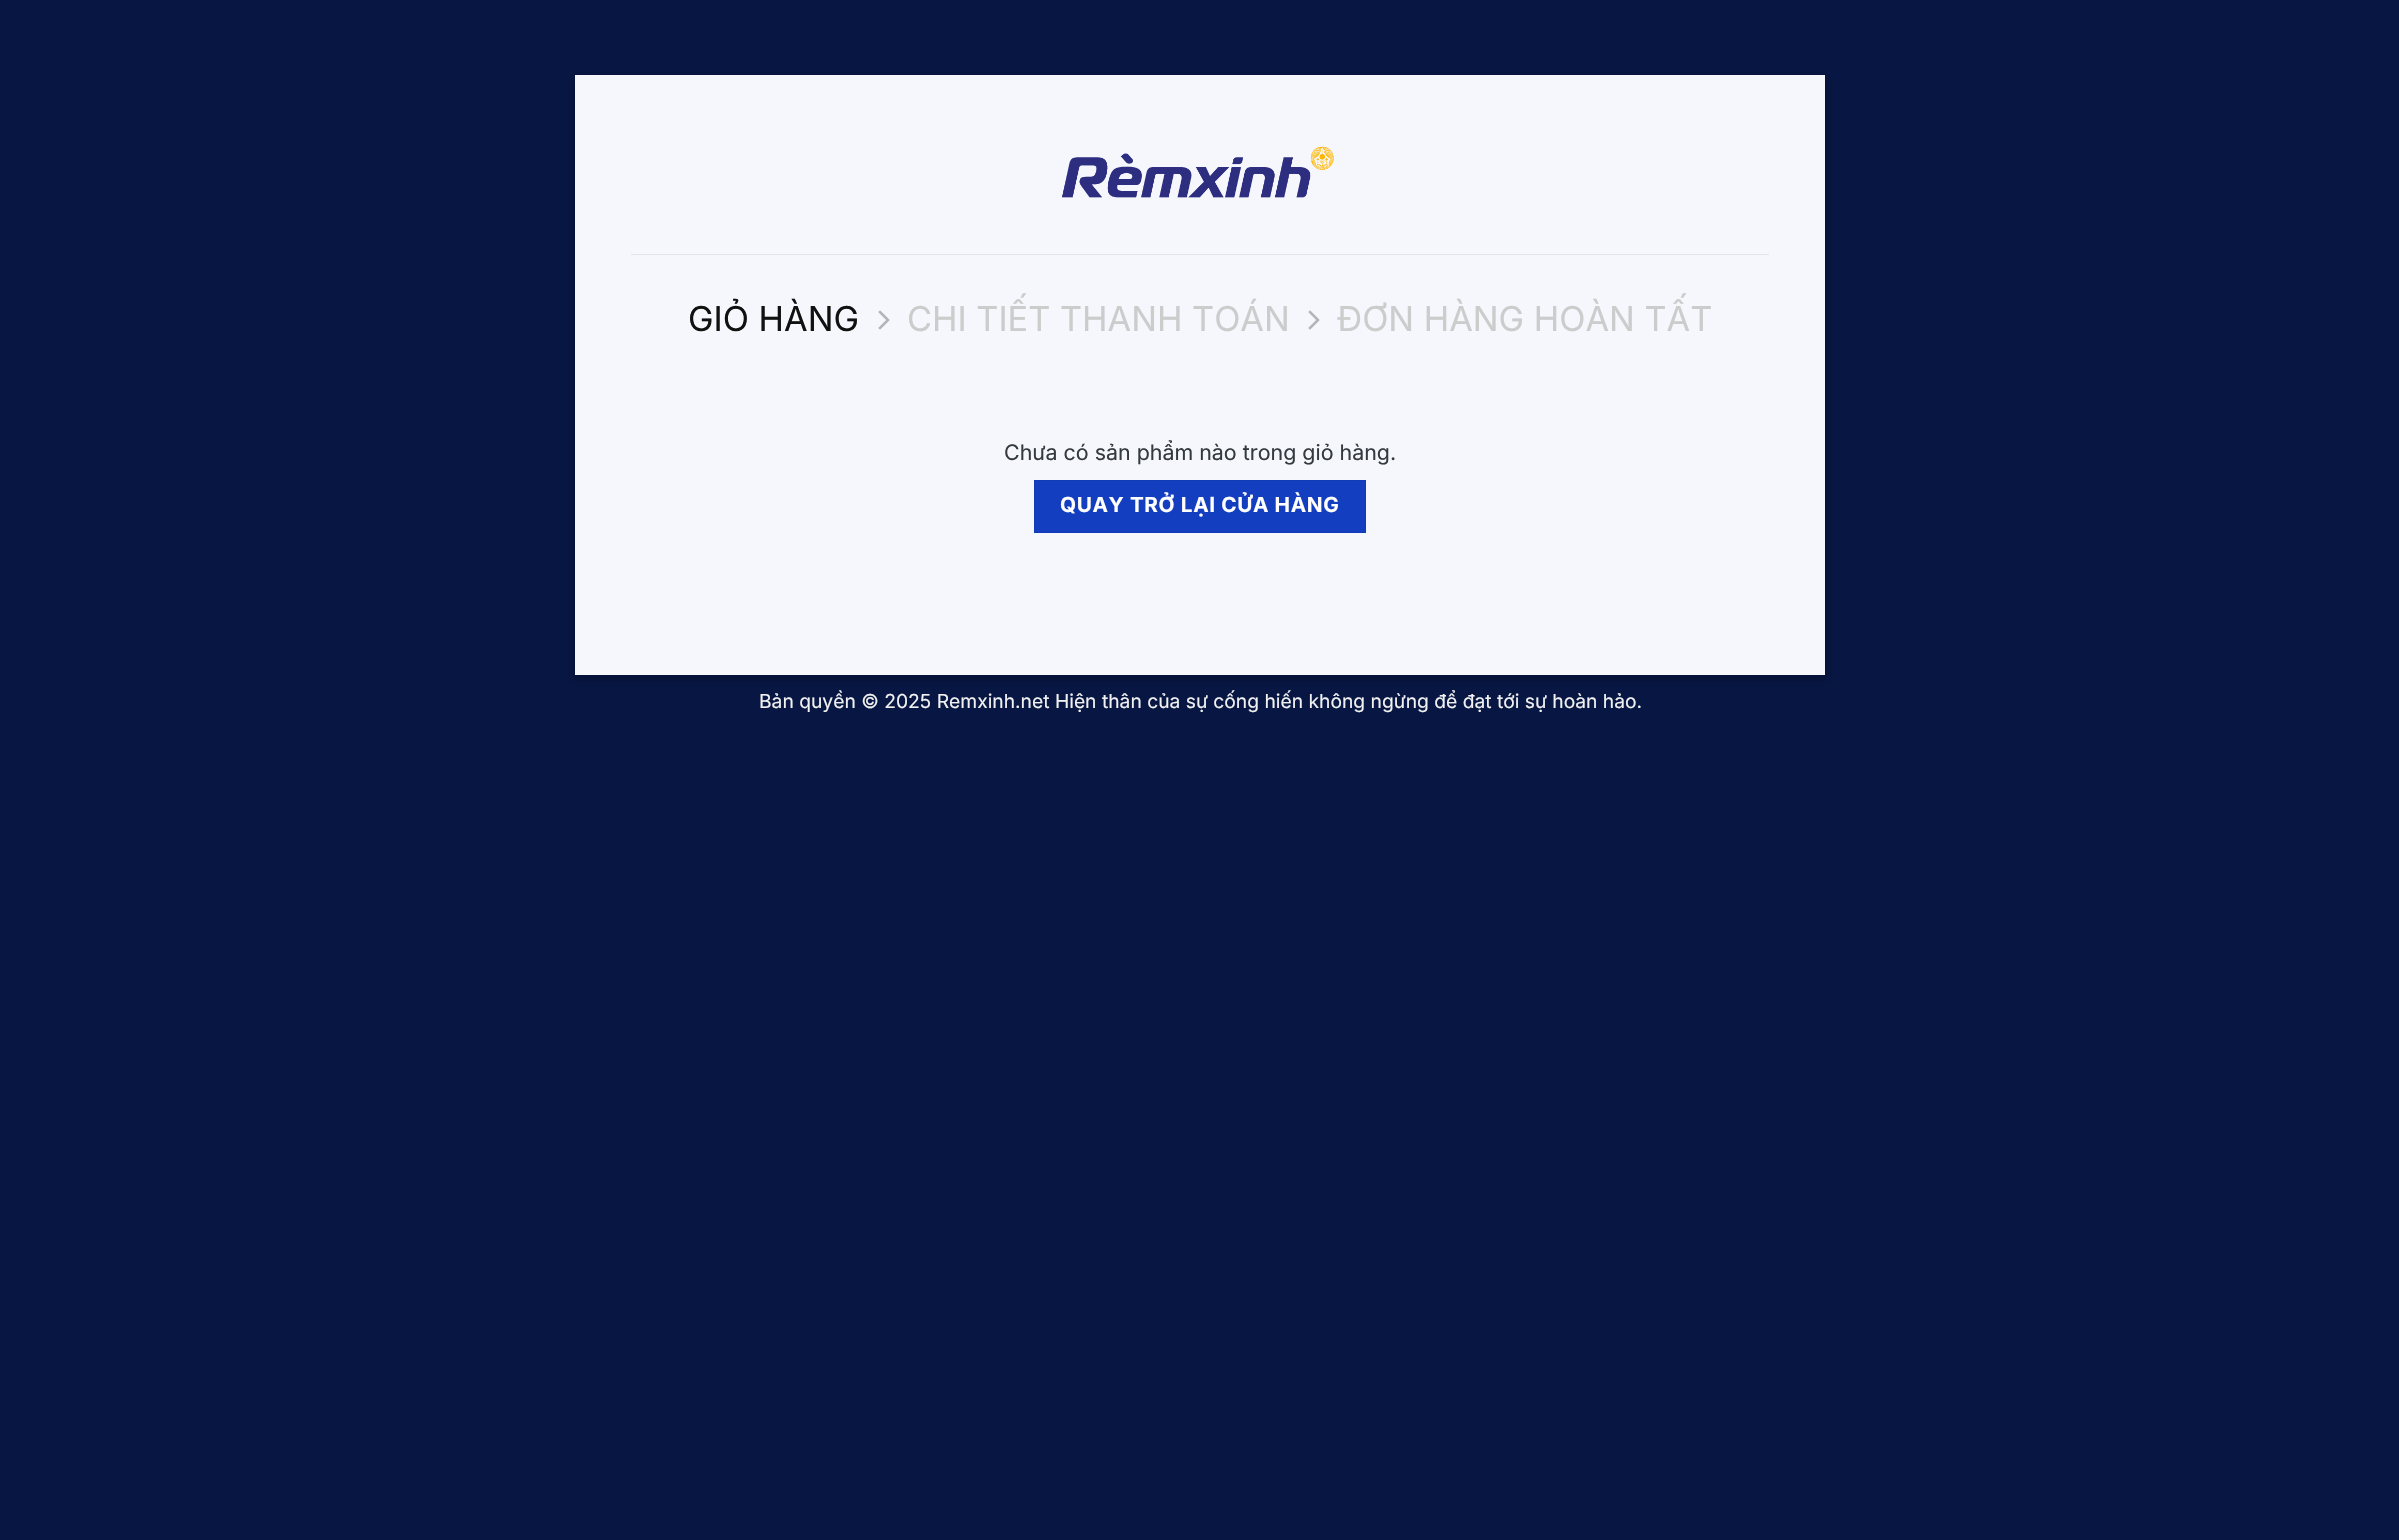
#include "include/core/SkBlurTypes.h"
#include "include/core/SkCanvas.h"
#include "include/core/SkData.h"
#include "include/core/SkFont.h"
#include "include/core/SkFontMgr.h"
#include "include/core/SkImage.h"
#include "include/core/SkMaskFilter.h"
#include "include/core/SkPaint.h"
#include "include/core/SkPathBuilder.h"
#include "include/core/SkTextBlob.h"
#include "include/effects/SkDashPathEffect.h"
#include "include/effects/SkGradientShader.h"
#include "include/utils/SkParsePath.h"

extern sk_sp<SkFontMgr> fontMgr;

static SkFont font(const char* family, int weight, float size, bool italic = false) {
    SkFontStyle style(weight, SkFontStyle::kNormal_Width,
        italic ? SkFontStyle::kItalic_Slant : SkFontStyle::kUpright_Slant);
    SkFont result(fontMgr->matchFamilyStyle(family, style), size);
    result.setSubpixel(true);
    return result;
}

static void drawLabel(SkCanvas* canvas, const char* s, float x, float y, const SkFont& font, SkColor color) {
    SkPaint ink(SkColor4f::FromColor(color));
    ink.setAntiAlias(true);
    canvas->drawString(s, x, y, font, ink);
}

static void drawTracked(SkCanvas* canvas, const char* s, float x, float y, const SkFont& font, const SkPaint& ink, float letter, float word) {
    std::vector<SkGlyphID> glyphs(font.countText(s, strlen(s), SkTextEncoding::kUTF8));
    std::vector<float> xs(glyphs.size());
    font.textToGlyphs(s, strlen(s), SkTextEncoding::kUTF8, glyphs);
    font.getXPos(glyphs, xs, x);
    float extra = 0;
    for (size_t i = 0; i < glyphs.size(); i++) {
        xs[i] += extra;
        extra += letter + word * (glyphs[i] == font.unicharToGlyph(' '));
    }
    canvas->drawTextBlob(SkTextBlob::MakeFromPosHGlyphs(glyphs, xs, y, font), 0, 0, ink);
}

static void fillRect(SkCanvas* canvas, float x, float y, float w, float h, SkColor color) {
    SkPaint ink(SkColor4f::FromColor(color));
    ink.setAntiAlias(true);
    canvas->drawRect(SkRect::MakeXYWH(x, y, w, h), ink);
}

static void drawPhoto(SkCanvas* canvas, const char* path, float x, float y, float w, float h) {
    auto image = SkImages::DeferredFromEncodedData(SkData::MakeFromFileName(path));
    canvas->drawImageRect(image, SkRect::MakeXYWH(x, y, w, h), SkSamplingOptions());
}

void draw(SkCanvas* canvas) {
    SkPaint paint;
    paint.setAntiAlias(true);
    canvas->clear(0xFF071642);
    paint.setColor(0x3B000000);
    paint.setMaskFilter(SkMaskFilter::MakeBlur(kNormal_SkBlurStyle, 4));
    canvas->drawRect(SkRect::MakeXYWH(575, 79, 1250, 600), paint);
    paint.setMaskFilter(nullptr);
    fillRect(canvas, 575, 75, 1250, 600, 0xFFF5F7FC);
    drawPhoto(canvas, "assets/img1.png", 1062, 146, 272, 52);
    fillRect(canvas, 631, 254, 1138, 1, 0xFFE2E4E9);
    SkFont font1 = font("Inter", 400, 34.25f);
    drawLabel(canvas, "GIỎ HÀNG", 688, 331, font1, 0xFF111111);
    drawPhoto(canvas, "assets/img2.png", 878, 310, 12, 20);
    drawLabel(canvas, "CHI TIẾT THANH TOÁN", 907, 331, font1, 0xFFCCCCCC);
    drawPhoto(canvas, "assets/img2.png", 1308, 310, 12, 20);
    drawLabel(canvas, "ĐƠN HÀNG HOÀN TẤT", 1337, 331, font1, 0xFFCCCCCC);
    SkFont font2 = font("Inter", 400, 21.4f);
    drawLabel(canvas, "Chưa có sản phẩm nào trong giỏ hàng.", 1004, 460, font2, 0xFF343A40);
    paint.setColor(0xFF133EBF);
    canvas->drawRect(SkRect::MakeXYWH(1034.5f, 480.5f, 331, 52), paint);
    paint.setStroke(true);
    paint.setStrokeWidth(1);
    paint.setColor(0xFF123BB5);
    canvas->drawRect(SkRect::MakeXYWH(1034.5f, 480.5f, 331, 52), paint);
    SkFont font3 = font("Inter", 700, 20.75f);
    paint.setStroke(false);
    paint.setColor(0xFFFFFFFF);
    drawTracked(canvas, "QUAY TRỞ LẠI CỬA HÀNG", 1060, 512, font3, paint, 0.6f, 0);
    SkFont font4 = font("Inter", 400, 19.25f);
    drawLabel(canvas, "Bản quyền © 2025 Remxinh.net Hiện thân của sự cống hiến không ngừng để đạt tới sự hoàn hảo.", 759, 708, font4, 0xFFF1F1F1);
}
